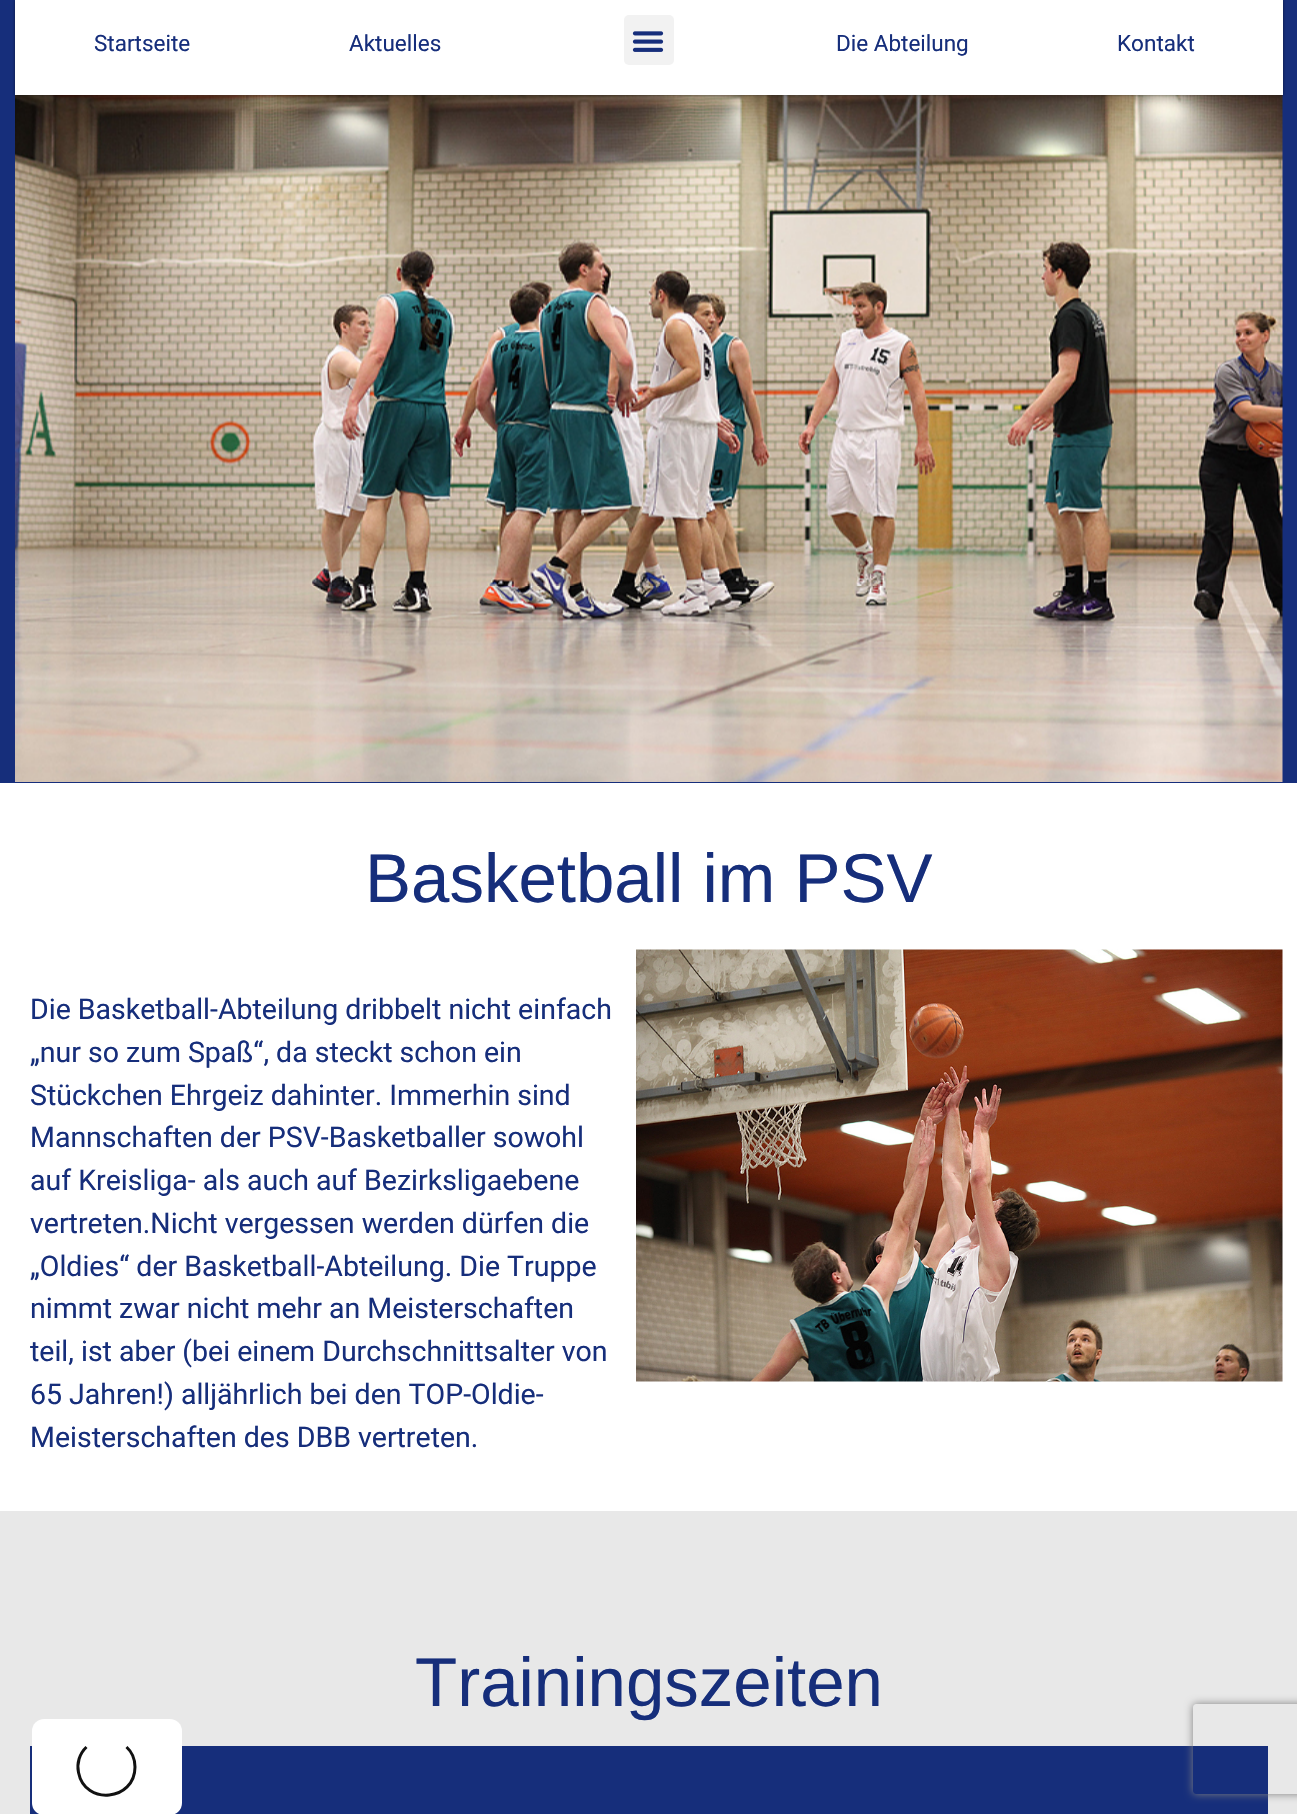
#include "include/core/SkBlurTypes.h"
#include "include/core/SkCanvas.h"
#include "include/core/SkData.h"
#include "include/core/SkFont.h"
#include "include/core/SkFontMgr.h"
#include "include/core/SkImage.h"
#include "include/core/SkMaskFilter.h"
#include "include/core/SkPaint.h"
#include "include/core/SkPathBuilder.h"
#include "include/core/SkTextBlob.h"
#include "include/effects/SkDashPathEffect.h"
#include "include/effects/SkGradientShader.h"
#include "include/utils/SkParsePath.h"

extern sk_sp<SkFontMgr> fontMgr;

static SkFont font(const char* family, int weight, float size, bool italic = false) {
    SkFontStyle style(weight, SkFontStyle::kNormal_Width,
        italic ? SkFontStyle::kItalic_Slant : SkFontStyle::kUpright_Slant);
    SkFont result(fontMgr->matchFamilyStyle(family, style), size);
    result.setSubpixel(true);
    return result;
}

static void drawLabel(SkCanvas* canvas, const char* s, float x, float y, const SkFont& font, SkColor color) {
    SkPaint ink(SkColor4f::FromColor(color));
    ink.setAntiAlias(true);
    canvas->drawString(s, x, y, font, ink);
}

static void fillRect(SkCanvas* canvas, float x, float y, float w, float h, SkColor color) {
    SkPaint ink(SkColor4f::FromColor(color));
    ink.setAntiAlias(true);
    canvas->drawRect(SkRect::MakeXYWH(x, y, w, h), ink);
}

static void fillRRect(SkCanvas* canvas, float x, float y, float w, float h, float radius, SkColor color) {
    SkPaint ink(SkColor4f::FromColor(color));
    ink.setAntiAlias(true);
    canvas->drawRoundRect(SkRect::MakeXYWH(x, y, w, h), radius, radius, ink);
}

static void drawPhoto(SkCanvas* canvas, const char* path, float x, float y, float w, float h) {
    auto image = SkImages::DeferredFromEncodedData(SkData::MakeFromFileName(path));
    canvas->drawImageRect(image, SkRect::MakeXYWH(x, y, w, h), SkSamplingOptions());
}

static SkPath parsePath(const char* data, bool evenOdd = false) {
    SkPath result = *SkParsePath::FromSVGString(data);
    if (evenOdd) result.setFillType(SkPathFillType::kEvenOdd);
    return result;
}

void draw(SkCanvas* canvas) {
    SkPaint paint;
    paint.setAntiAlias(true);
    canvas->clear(0xFF162E7B);
    drawPhoto(canvas, "assets/img2.png", 15, 95, 1268, 687);
    paint.setColor(0x80000000);
    paint.setMaskFilter(SkMaskFilter::MakeBlur(kNormal_SkBlurStyle, 1.5f));
    canvas->drawRect(SkRect::MakeXYWH(15, 0, 1268, 95), paint);
    paint.setMaskFilter(nullptr);
    fillRect(canvas, 15, 0, 1268, 95, 0xFFFFFFFF);
    SkFont font1 = font("Roboto", 400, 22.5f);
    drawLabel(canvas, "Startseite", 94, 51, font1, 0xFF162E7B);
    drawLabel(canvas, "Aktuelles", 349, 51, font1, 0xFF162E7B);
    fillRRect(canvas, 624, 15, 50, 50, 5, 0xFFF2F2F2);
    drawPhoto(canvas, "assets/img1.png", 632, 31, 32, 21);
    drawLabel(canvas, "Die Abteilung", 836, 51, font1, 0xFF162E7B);
    drawLabel(canvas, "Kontakt", 1117, 51, font1, 0xFF162E7B);
    fillRect(canvas, 0, 783, 1297, 728, 0xFFFFFFFF);
    SkFont font2 = font("Liberation Sans", 400, 69);
    drawLabel(canvas, "Basketball im PSV", 365, 902, font2, 0xFF162E7B);
    SkFont font3 = font("Roboto", 400, 28.5f);
    drawLabel(canvas, "Die Basketball-Abteilung dribbelt nicht einfach", 30, 1019, font3, 0xFF162E7B);
    drawLabel(canvas, "„nur so zum Spaß“, da steckt schon ein", 30, 1062, font3, 0xFF162E7B);
    drawLabel(canvas, "Stückchen Ehrgeiz dahinter. Immerhin sind", 30, 1105, font3, 0xFF162E7B);
    drawLabel(canvas, "Mannschaften der PSV-Basketballer sowohl", 30, 1147, font3, 0xFF162E7B);
    drawLabel(canvas, "auf Kreisliga- als auch auf Bezirksligaebene", 30, 1190, font3, 0xFF162E7B);
    drawLabel(canvas, "vertreten.Nicht vergessen werden dürfen die", 30, 1233, font3, 0xFF162E7B);
    drawLabel(canvas, "„Oldies“ der Basketball-Abteilung. Die Truppe", 30, 1276, font3, 0xFF162E7B);
    drawLabel(canvas, "nimmt zwar nicht mehr an Meisterschaften", 30, 1318, font3, 0xFF162E7B);
    drawLabel(canvas, "teil, ist aber (bei einem Durchschnittsalter von", 30, 1361, font3, 0xFF162E7B);
    drawLabel(canvas, "65 Jahren!) alljährlich bei den TOP-Oldie-", 30, 1404, font3, 0xFF162E7B);
    drawLabel(canvas, "Meisterschaften des DBB vertreten.", 30, 1447, font3, 0xFF162E7B);
    drawPhoto(canvas, "assets/img3.png", 636, 949, 647, 433);
    fillRect(canvas, 0, 1511, 1297, 303, 0xFFE8E8E8);
    fillRect(canvas, 30, 1746, 1238, 68, 0xFF162E7B);
    fillRRect(canvas, 32, 1719, 150, 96, 12, 0xFFFFFFFF);
    paint.setStroke(true);
    paint.setStrokeWidth(3);
    paint.setColor(0xFF111111);
    canvas->drawPath(parsePath("M126.5 1747C132 1752 135 1759.5 135 1767C135 1801 85 1806 78.5 1772.5C76.5 1763.5 79.5 1753.5 86.5 1747"), paint);
    drawLabel(canvas, "Trainingszeiten", 415, 1706, font2, 0xFF162E7B);
    canvas->save();
    canvas->clipPath(parsePath("M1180 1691H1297V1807H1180ZM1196 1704H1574C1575.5 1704 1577 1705.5 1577 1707V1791C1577 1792.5 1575.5 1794 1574 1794H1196C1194.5 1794 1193 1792.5 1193 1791V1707C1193 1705.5 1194.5 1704 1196 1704Z", true), true);
    paint.setStroke(false);
    paint.setColor(0xFF808080);
    paint.setMaskFilter(SkMaskFilter::MakeBlur(kNormal_SkBlurStyle, 4));
    canvas->drawRoundRect(SkRect::MakeXYWH(1193, 1704, 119, 90), 3, 3, paint);
    paint.setMaskFilter(nullptr);
    canvas->restore();
}
